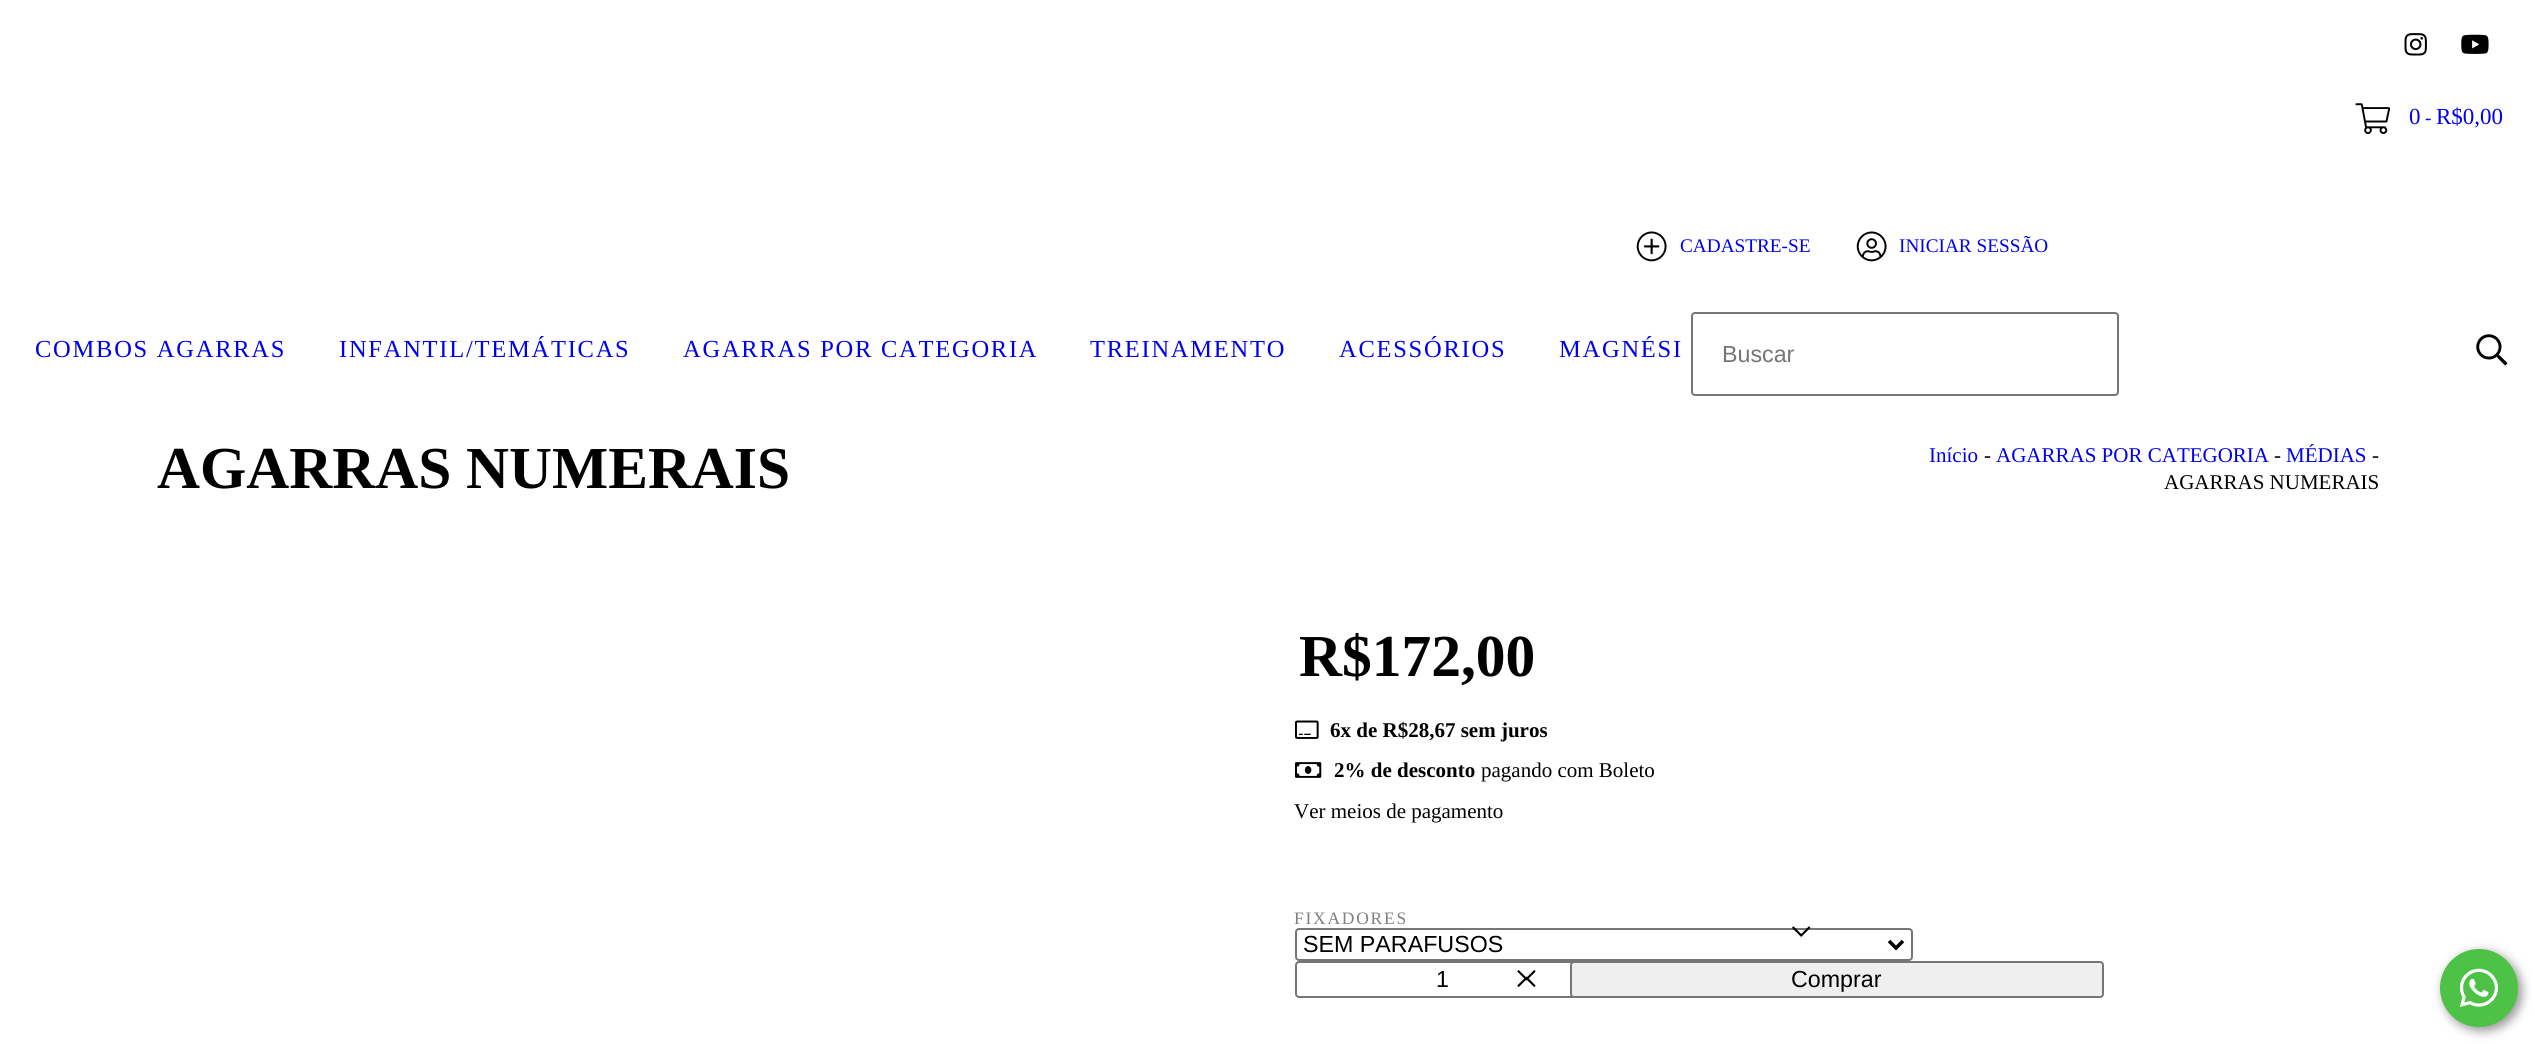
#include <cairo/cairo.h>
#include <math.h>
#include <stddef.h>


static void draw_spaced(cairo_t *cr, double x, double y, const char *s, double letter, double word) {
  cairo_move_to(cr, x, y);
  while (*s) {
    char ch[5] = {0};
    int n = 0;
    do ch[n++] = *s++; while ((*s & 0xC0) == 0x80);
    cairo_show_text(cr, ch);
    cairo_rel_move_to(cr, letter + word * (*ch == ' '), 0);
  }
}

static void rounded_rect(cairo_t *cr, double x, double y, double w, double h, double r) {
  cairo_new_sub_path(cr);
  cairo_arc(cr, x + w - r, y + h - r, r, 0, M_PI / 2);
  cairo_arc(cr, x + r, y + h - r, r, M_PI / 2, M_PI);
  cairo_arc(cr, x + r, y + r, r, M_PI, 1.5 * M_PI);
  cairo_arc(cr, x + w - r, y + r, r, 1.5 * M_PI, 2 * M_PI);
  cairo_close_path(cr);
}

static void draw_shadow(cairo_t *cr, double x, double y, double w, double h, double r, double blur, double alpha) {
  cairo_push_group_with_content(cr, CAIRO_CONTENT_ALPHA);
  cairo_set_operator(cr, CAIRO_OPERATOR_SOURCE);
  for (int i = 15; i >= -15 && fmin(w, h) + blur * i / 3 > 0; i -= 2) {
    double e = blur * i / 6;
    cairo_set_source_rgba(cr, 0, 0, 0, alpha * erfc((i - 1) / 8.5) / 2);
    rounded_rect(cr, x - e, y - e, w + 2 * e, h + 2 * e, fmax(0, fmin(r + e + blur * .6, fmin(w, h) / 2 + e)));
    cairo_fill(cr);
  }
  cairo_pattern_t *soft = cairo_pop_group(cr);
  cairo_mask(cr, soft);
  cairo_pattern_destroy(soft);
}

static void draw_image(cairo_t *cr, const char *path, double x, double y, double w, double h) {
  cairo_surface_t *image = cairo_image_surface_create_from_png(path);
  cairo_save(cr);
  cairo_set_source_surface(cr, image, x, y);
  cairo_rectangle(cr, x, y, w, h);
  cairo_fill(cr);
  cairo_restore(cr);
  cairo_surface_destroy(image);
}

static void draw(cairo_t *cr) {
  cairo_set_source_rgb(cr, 1, 1, 1);
  cairo_paint(cr);
  draw_image(cr, "images/1.png", 2404, 33, 23, 23);
  draw_image(cr, "images/2.png", 2461, 34, 28, 20);
  draw_image(cr, "images/3.png", 2355, 103, 36, 31);
  draw_image(cr, "images/4.png", 1636, 231, 31, 31);
  draw_image(cr, "images/5.png", 1856, 231, 31, 31);
  rounded_rect(cr, 1692, 313, 426, 82, 3);
  cairo_set_source_rgb(cr, 118 / 255.0, 118 / 255.0, 118 / 255.0);
  cairo_stroke(cr);
  draw_image(cr, "images/6.png", 2476, 334, 32, 32);
  draw_image(cr, "images/7.png", 1295, 720, 24, 19);
  draw_image(cr, "images/8.png", 1295, 762, 27, 16);
  rounded_rect(cr, 1296, 929, 616, 31, 3);
  cairo_stroke(cr);
  draw_image(cr, "images/9.png", 1792, 926, 19, 11);
  cairo_new_path(cr);
  cairo_move_to(cr, 1889, 941);
  cairo_line_to(cr, 1896, 948);
  cairo_line_to(cr, 1903, 941);
  cairo_set_source_rgb(cr, 0, 0, 0);
  cairo_set_line_width(cr, 3.5);
  cairo_stroke(cr);
  rounded_rect(cr, 1296, 962, 322, 35, 3);
  cairo_set_source_rgb(cr, 118 / 255.0, 118 / 255.0, 118 / 255.0);
  cairo_set_line_width(cr, 2);
  cairo_stroke(cr);
  draw_image(cr, "images/10.png", 1517, 970, 19, 11);
  draw_image(cr, "images/11.png", 1517, 976, 19, 11);
  cairo_set_source_rgb(cr, 239 / 255.0, 239 / 255.0, 239 / 255.0);
  rounded_rect(cr, 1571, 962, 532, 35, 3);
  cairo_fill_preserve(cr);
  cairo_set_source_rgb(cr, 118 / 255.0, 118 / 255.0, 118 / 255.0);
  cairo_stroke(cr);
  cairo_set_source_rgb(cr, 0, 0, 0);
  draw_shadow(cr, 2443, 952, 79, 79, 39.5, 5, 0.4);
  cairo_set_source_rgb(cr, 77 / 255.0, 194 / 255.0, 71 / 255.0);
  cairo_arc(cr, 2479, 988, 39, 0, 2 * M_PI);
  cairo_fill(cr);
  draw_image(cr, "images/12.png", 2459, 968, 39, 39);
  cairo_select_font_face(cr, "Liberation Serif", CAIRO_FONT_SLANT_NORMAL, CAIRO_FONT_WEIGHT_NORMAL);
  cairo_set_font_size(cr, 23);
  cairo_set_source_rgb(cr, 0, 0, 238 / 255.0);
  cairo_move_to(cr, 2409, 124);
  cairo_show_text(cr, "0");
  cairo_set_font_size(cr, 19.25);
  cairo_move_to(cr, 2425, 124);
  cairo_show_text(cr, "-");
  cairo_set_font_size(cr, 23);
  cairo_move_to(cr, 2436, 124);
  cairo_show_text(cr, "R$0,00");
  cairo_set_font_size(cr, 19.25);
  cairo_move_to(cr, 1680, 252);
  cairo_show_text(cr, "CADASTRE-SE");
  cairo_move_to(cr, 1899, 252);
  cairo_show_text(cr, "INICIAR SESSÃO");
  cairo_set_font_size(cr, 24.5);
  draw_spaced(cr, 35, 357, "COMBOS AGARRAS", 1.75, 0);
  draw_spaced(cr, 339, 357, "INFANTIL/TEMÁTICAS", 1.75, 0);
  draw_spaced(cr, 683, 357, "AGARRAS POR CATEGORIA", 1.75, 0);
  draw_spaced(cr, 1090, 357, "TREINAMENTO", 1.75, 0);
  draw_spaced(cr, 1339, 357, "ACESSÓRIOS", 1.75, 0);
  draw_spaced(cr, 1559, 357, "MAGNÉSI", 1.75, 0);
  cairo_select_font_face(cr, "Liberation Sans", CAIRO_FONT_SLANT_NORMAL, CAIRO_FONT_WEIGHT_NORMAL);
  cairo_set_font_size(cr, 23.25);
  cairo_set_source_rgb(cr, 117 / 255.0, 117 / 255.0, 117 / 255.0);
  cairo_move_to(cr, 1722, 362);
  cairo_show_text(cr, "Buscar");
  cairo_select_font_face(cr, "Liberation Serif", CAIRO_FONT_SLANT_NORMAL, CAIRO_FONT_WEIGHT_BOLD);
  cairo_set_font_size(cr, 59.5);
  cairo_set_source_rgb(cr, 0, 0, 0);
  cairo_move_to(cr, 157, 488);
  cairo_show_text(cr, "AGARRAS NUMERAIS");
  cairo_select_font_face(cr, "Liberation Serif", CAIRO_FONT_SLANT_NORMAL, CAIRO_FONT_WEIGHT_NORMAL);
  cairo_set_font_size(cr, 21);
  cairo_set_source_rgb(cr, 0, 0, 238 / 255.0);
  cairo_move_to(cr, 1929, 462);
  cairo_show_text(cr, "Início");
  cairo_set_source_rgb(cr, 0, 0, 0);
  cairo_move_to(cr, 1984, 462);
  cairo_show_text(cr, "-");
  cairo_set_source_rgb(cr, 0, 0, 238 / 255.0);
  cairo_move_to(cr, 1996, 462);
  cairo_show_text(cr, "AGARRAS POR CATEGORIA");
  cairo_set_source_rgb(cr, 0, 0, 0);
  cairo_move_to(cr, 2274, 462);
  cairo_show_text(cr, "-");
  cairo_set_source_rgb(cr, 0, 0, 238 / 255.0);
  cairo_move_to(cr, 2286, 462);
  cairo_show_text(cr, "MÉDIAS");
  cairo_set_source_rgb(cr, 0, 0, 0);
  cairo_move_to(cr, 2372, 462);
  cairo_show_text(cr, "-");
  cairo_move_to(cr, 2164, 489);
  cairo_show_text(cr, "AGARRAS NUMERAIS");
  cairo_select_font_face(cr, "Liberation Serif", CAIRO_FONT_SLANT_NORMAL, CAIRO_FONT_WEIGHT_BOLD);
  cairo_set_font_size(cr, 59.5);
  cairo_move_to(cr, 1299, 676);
  cairo_show_text(cr, "R$172,00");
  cairo_set_font_size(cr, 21);
  cairo_move_to(cr, 1330, 737);
  cairo_show_text(cr, "6x de R$28,67 sem juros");
  cairo_move_to(cr, 1334, 777);
  cairo_show_text(cr, "2% de desconto");
  cairo_select_font_face(cr, "Liberation Serif", CAIRO_FONT_SLANT_NORMAL, CAIRO_FONT_WEIGHT_NORMAL);
  cairo_move_to(cr, 1481, 777);
  cairo_show_text(cr, "pagando com Boleto");
  cairo_move_to(cr, 1294, 818);
  cairo_show_text(cr, "Ver meios de pagamento");
  cairo_set_font_size(cr, 17.5);
  cairo_set_source_rgb(cr, 128 / 255.0, 128 / 255.0, 128 / 255.0);
  draw_spaced(cr, 1294, 924, "FIXADORES", 1.75, 0);
  cairo_select_font_face(cr, "Liberation Sans", CAIRO_FONT_SLANT_NORMAL, CAIRO_FONT_WEIGHT_NORMAL);
  cairo_set_font_size(cr, 23.25);
  cairo_set_source_rgb(cr, 0, 0, 0);
  cairo_move_to(cr, 1303, 952);
  cairo_show_text(cr, "SEM PARAFUSOS");
  cairo_move_to(cr, 1436, 987);
  cairo_show_text(cr, "1");
  cairo_move_to(cr, 1791, 987);
  cairo_show_text(cr, "Comprar");
}

int main(void) {
  cairo_surface_t *surface = cairo_image_surface_create(CAIRO_FORMAT_RGB24, 2535, 1044);
  cairo_t *cr = cairo_create(surface);
  cairo_font_options_t *options = cairo_font_options_create();
  cairo_font_options_set_hint_metrics(options, CAIRO_HINT_METRICS_OFF);
  cairo_font_options_set_hint_style(options, CAIRO_HINT_STYLE_NONE);
  cairo_set_font_options(cr, options);
  cairo_set_miter_limit(cr, 4);
  draw(cr);
  cairo_surface_write_to_png(surface, "out.png");
  cairo_font_options_destroy(options);
  cairo_destroy(cr);
  cairo_surface_destroy(surface);
  return 0;
}
